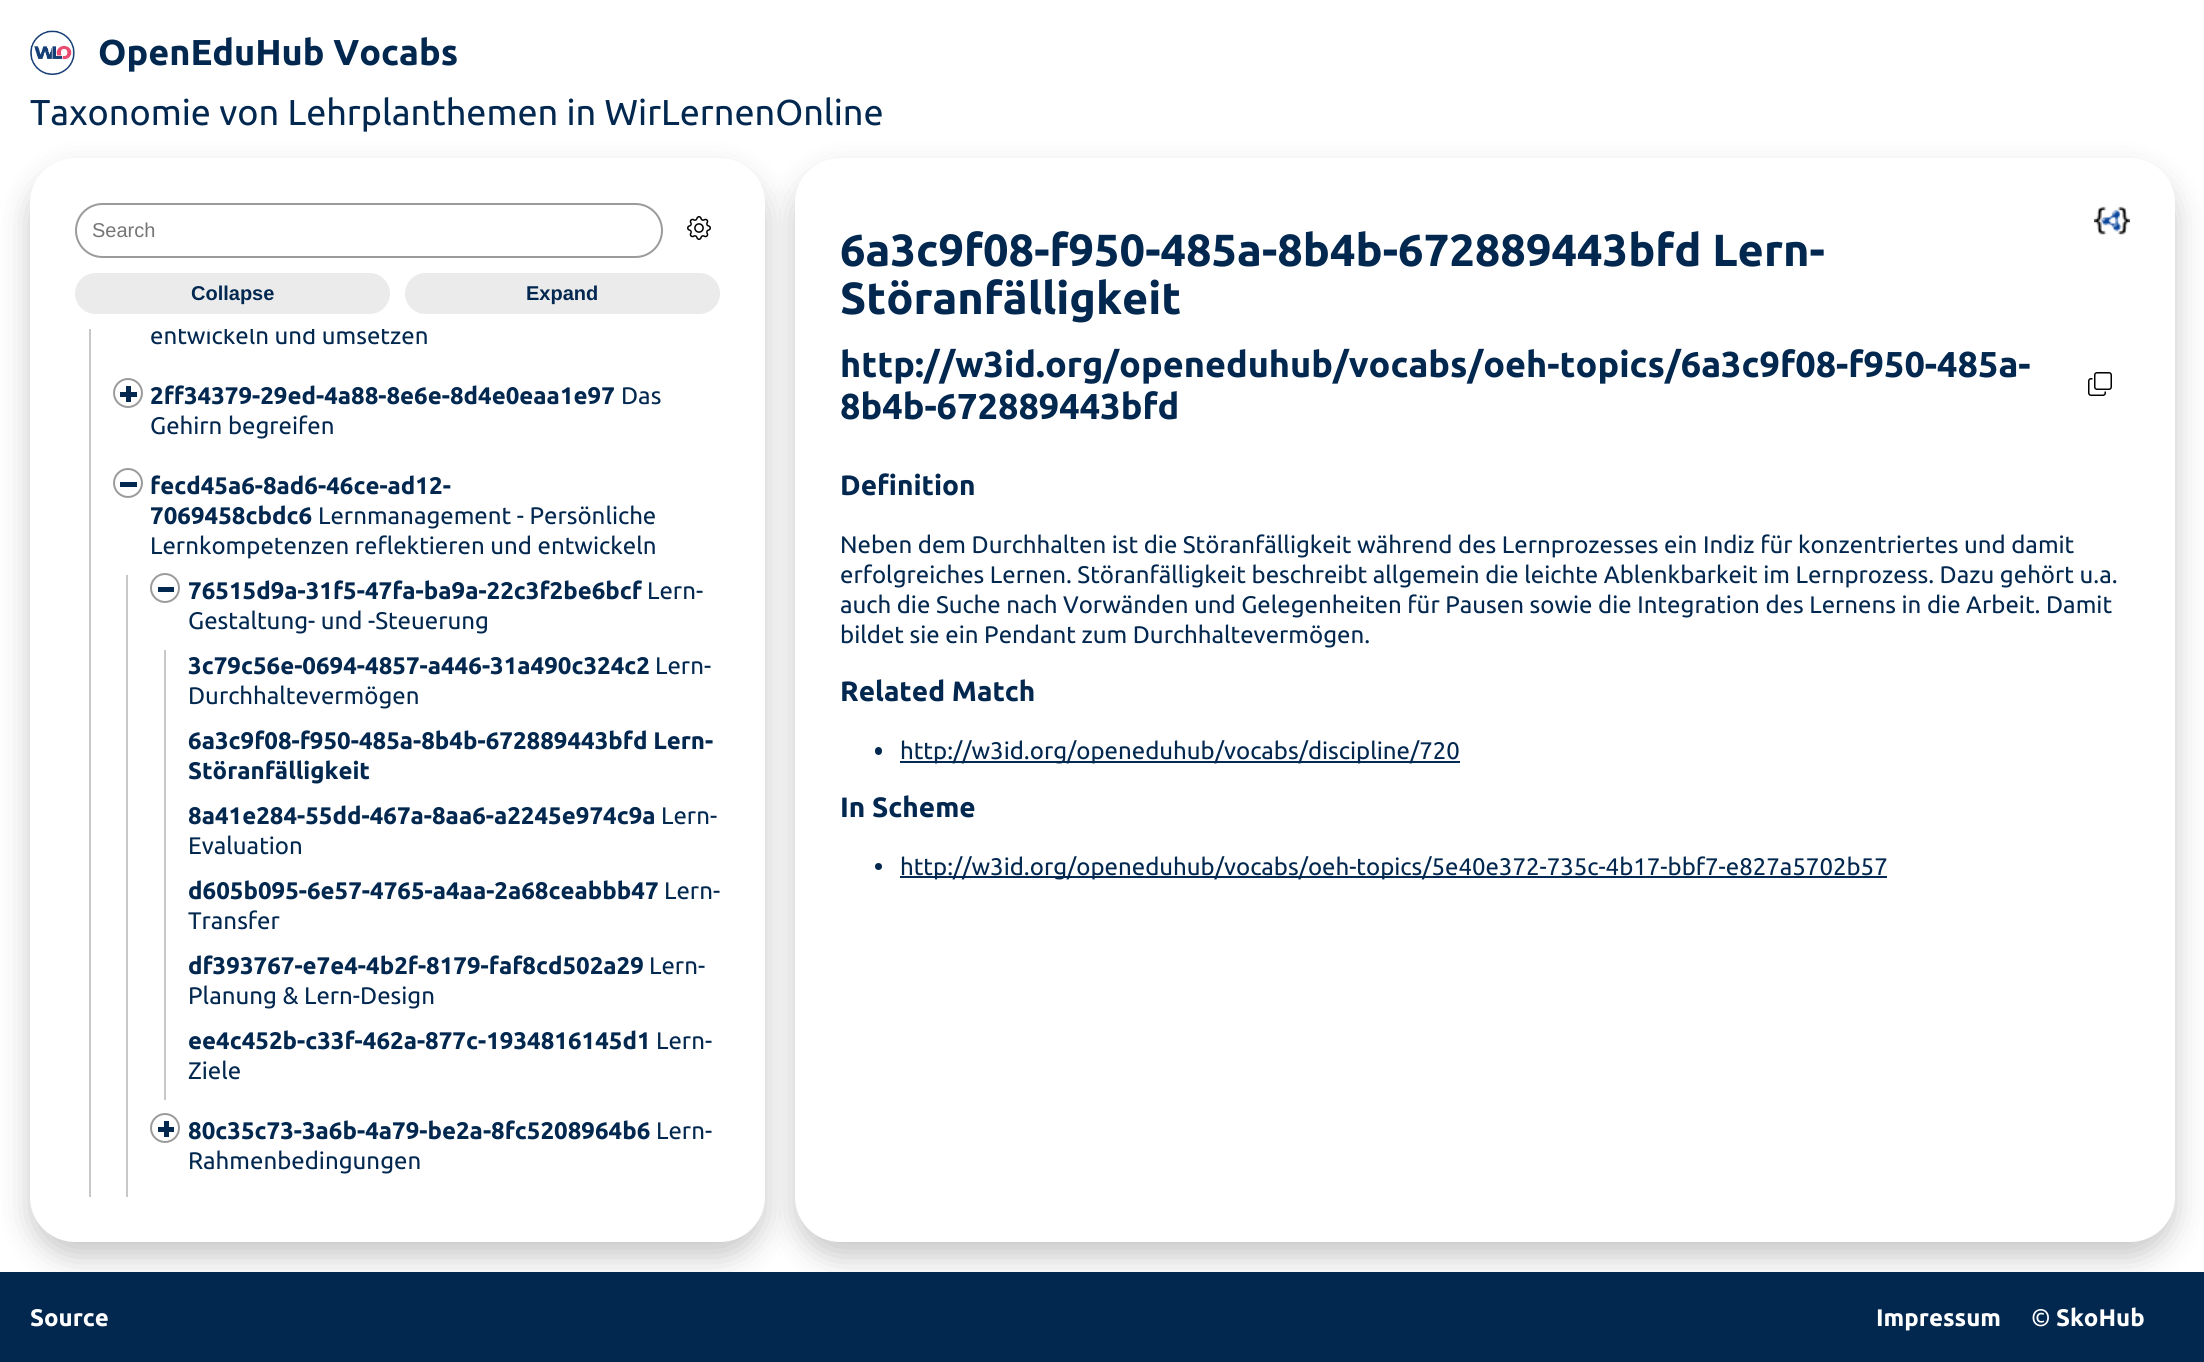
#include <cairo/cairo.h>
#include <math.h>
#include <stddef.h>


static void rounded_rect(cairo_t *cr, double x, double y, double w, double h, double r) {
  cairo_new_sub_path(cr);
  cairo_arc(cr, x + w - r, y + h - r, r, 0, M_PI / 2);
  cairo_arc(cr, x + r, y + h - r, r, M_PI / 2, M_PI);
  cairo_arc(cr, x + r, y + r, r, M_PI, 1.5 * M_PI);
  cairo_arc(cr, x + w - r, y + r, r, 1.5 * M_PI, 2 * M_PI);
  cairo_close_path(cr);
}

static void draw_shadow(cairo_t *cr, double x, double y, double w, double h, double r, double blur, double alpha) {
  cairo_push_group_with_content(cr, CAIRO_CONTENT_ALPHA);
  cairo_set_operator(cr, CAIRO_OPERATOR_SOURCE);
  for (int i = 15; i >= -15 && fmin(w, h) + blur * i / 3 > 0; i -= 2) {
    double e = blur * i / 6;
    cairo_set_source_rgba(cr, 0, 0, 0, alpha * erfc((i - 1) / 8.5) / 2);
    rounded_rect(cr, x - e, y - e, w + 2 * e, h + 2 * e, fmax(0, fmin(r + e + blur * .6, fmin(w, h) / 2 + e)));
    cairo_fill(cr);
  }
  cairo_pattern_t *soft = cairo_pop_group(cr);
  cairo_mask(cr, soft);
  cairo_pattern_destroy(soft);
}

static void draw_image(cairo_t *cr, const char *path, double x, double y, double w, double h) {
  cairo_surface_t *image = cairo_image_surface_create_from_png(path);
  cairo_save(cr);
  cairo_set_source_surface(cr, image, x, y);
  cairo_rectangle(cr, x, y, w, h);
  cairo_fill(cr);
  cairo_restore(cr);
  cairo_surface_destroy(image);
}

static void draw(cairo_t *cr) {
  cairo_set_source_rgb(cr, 1, 1, 1);
  cairo_paint(cr);
  draw_image(cr, "images/1.png", 30, 30, 45, 45);
  cairo_set_source_rgb(cr, 3 / 255.0, 40 / 255.0, 80 / 255.0);
  cairo_rectangle(cr, 0, 1272, 2204, 90);
  cairo_fill(cr);
  cairo_save(cr);
  cairo_rectangle(cr, 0, 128, 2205, 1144);
  cairo_clip(cr);
  cairo_set_source_rgb(cr, 200 / 255.0, 200 / 255.0, 200 / 255.0);
  draw_shadow(cr, 30, 173, 735, 1084, 45, 15, 1);
  cairo_restore(cr);
  cairo_set_source_rgb(cr, 1, 1, 1);
  rounded_rect(cr, 30, 158, 735, 1084, 45);
  cairo_fill(cr);
  rounded_rect(cr, 76, 204, 586, 53, 26.5);
  cairo_set_source_rgb(cr, 155 / 255.0, 155 / 255.0, 155 / 255.0);
  cairo_stroke(cr);
  draw_image(cr, "images/2.png", 687, 216, 24, 24);
  cairo_set_source_rgb(cr, 235 / 255.0, 235 / 255.0, 235 / 255.0);
  rounded_rect(cr, 76, 274, 313, 39, 19.5);
  cairo_fill_preserve(cr);
  cairo_stroke(cr);
  rounded_rect(cr, 406, 274, 313, 39, 19.5);
  cairo_fill_preserve(cr);
  cairo_stroke(cr);
  cairo_set_source_rgb(cr, 200 / 255.0, 200 / 255.0, 200 / 255.0);
  cairo_rectangle(cr, 89, 329, 2, 868);
  cairo_fill(cr);
  cairo_arc(cr, 128, 393, 14, 0, 2 * M_PI);
  cairo_set_source_rgb(cr, 155 / 255.0, 155 / 255.0, 155 / 255.0);
  cairo_stroke(cr);
  cairo_set_source_rgb(cr, 3 / 255.0, 40 / 255.0, 80 / 255.0);
  cairo_rectangle(cr, 120, 392, 17, 5);
  cairo_fill(cr);
  cairo_rectangle(cr, 126, 386, 5, 16);
  cairo_fill(cr);
  cairo_arc(cr, 128, 483, 14, 0, 2 * M_PI);
  cairo_set_source_rgb(cr, 155 / 255.0, 155 / 255.0, 155 / 255.0);
  cairo_stroke(cr);
  cairo_set_source_rgb(cr, 3 / 255.0, 40 / 255.0, 80 / 255.0);
  cairo_rectangle(cr, 120, 482, 17, 5);
  cairo_fill(cr);
  cairo_set_source_rgb(cr, 200 / 255.0, 200 / 255.0, 200 / 255.0);
  cairo_rectangle(cr, 126, 575, 2, 622);
  cairo_fill(cr);
  cairo_arc(cr, 165, 588, 14, 0, 2 * M_PI);
  cairo_set_source_rgb(cr, 155 / 255.0, 155 / 255.0, 155 / 255.0);
  cairo_stroke(cr);
  cairo_set_source_rgb(cr, 3 / 255.0, 40 / 255.0, 80 / 255.0);
  cairo_rectangle(cr, 158, 587, 16, 5);
  cairo_fill(cr);
  cairo_set_source_rgb(cr, 200 / 255.0, 200 / 255.0, 200 / 255.0);
  cairo_rectangle(cr, 164, 650, 2, 450);
  cairo_fill(cr);
  cairo_arc(cr, 165, 1128, 14, 0, 2 * M_PI);
  cairo_set_source_rgb(cr, 155 / 255.0, 155 / 255.0, 155 / 255.0);
  cairo_stroke(cr);
  cairo_set_source_rgb(cr, 3 / 255.0, 40 / 255.0, 80 / 255.0);
  cairo_rectangle(cr, 158, 1127, 16, 5);
  cairo_fill(cr);
  cairo_rectangle(cr, 164, 1121, 5, 16);
  cairo_fill(cr);
  cairo_save(cr);
  cairo_rectangle(cr, 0, 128, 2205, 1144);
  cairo_clip(cr);
  cairo_set_source_rgb(cr, 200 / 255.0, 200 / 255.0, 200 / 255.0);
  draw_shadow(cr, 795, 173, 1380, 1084, 45, 15, 1);
  cairo_restore(cr);
  cairo_set_source_rgb(cr, 1, 1, 1);
  rounded_rect(cr, 795, 158, 1380, 1084, 45);
  cairo_fill(cr);
  draw_image(cr, "images/3.png", 2094, 206, 36, 29);
  draw_image(cr, "images/4.png", 2088, 372, 24, 24);
  cairo_set_source_rgb(cr, 3 / 255.0, 40 / 255.0, 80 / 255.0);
  rounded_rect(cr, 875, 747, 7, 8, 3.5);
  cairo_fill(cr);
  cairo_set_source_rgb(cr, 3 / 255.0, 42 / 255.0, 85 / 255.0);
  cairo_rectangle(cr, 900, 761, 560, 2);
  cairo_fill(cr);
  cairo_set_source_rgb(cr, 3 / 255.0, 40 / 255.0, 80 / 255.0);
  cairo_arc(cr, 878.5, 866.5, 3.5, 0, 2 * M_PI);
  cairo_fill(cr);
  cairo_set_source_rgb(cr, 3 / 255.0, 42 / 255.0, 85 / 255.0);
  cairo_rectangle(cr, 900, 876, 987, 2);
  cairo_fill(cr);
  cairo_select_font_face(cr, "Ubuntu", CAIRO_FONT_SLANT_NORMAL, CAIRO_FONT_WEIGHT_BOLD);
  cairo_set_font_size(cr, 36);
  cairo_set_source_rgb(cr, 3 / 255.0, 40 / 255.0, 80 / 255.0);
  cairo_move_to(cr, 98, 65);
  cairo_show_text(cr, "OpenEduHub Vocabs");
  cairo_select_font_face(cr, "Ubuntu", CAIRO_FONT_SLANT_NORMAL, CAIRO_FONT_WEIGHT_NORMAL);
  cairo_move_to(cr, 30, 125);
  cairo_show_text(cr, "Taxonomie von Lehrplanthemen in WirLernenOnline");
  cairo_select_font_face(cr, "Liberation Sans", CAIRO_FONT_SLANT_NORMAL, CAIRO_FONT_WEIGHT_NORMAL);
  cairo_set_font_size(cr, 20);
  cairo_set_source_rgb(cr, 117 / 255.0, 117 / 255.0, 117 / 255.0);
  cairo_move_to(cr, 92, 237);
  cairo_show_text(cr, "Search");
  cairo_select_font_face(cr, "Liberation Sans", CAIRO_FONT_SLANT_NORMAL, CAIRO_FONT_WEIGHT_BOLD);
  cairo_set_source_rgb(cr, 3 / 255.0, 40 / 255.0, 80 / 255.0);
  cairo_move_to(cr, 191, 300);
  cairo_show_text(cr, "Collapse");
  cairo_move_to(cr, 526, 300);
  cairo_show_text(cr, "Expand");
  cairo_save(cr);
  cairo_rectangle(cr, 75, 329, 645, 868);
  cairo_clip(cr);
  cairo_select_font_face(cr, "Ubuntu", CAIRO_FONT_SLANT_NORMAL, CAIRO_FONT_WEIGHT_NORMAL);
  cairo_set_font_size(cr, 24);
  cairo_move_to(cr, 150, 344);
  cairo_show_text(cr, "entwickeln und umsetzen");
  cairo_restore(cr);
  cairo_select_font_face(cr, "Ubuntu", CAIRO_FONT_SLANT_NORMAL, CAIRO_FONT_WEIGHT_BOLD);
  cairo_set_font_size(cr, 24);
  cairo_move_to(cr, 150, 404);
  cairo_show_text(cr, "2ff34379-29ed-4a88-8e6e-8d4e0eaa1e97");
  cairo_select_font_face(cr, "Ubuntu", CAIRO_FONT_SLANT_NORMAL, CAIRO_FONT_WEIGHT_NORMAL);
  cairo_move_to(cr, 621, 404);
  cairo_show_text(cr, "Das");
  cairo_move_to(cr, 150, 434);
  cairo_show_text(cr, "Gehirn begreifen");
  cairo_select_font_face(cr, "Ubuntu", CAIRO_FONT_SLANT_NORMAL, CAIRO_FONT_WEIGHT_BOLD);
  cairo_move_to(cr, 150, 494);
  cairo_show_text(cr, "fecd45a6-8ad6-46ce-ad12-");
  cairo_move_to(cr, 150, 524);
  cairo_show_text(cr, "7069458cbdc6");
  cairo_select_font_face(cr, "Ubuntu", CAIRO_FONT_SLANT_NORMAL, CAIRO_FONT_WEIGHT_NORMAL);
  cairo_move_to(cr, 318, 524);
  cairo_show_text(cr, "Lernmanagement - Persönliche");
  cairo_move_to(cr, 150, 554);
  cairo_show_text(cr, "Lernkompetenzen reflektieren und entwickeln");
  cairo_select_font_face(cr, "Ubuntu", CAIRO_FONT_SLANT_NORMAL, CAIRO_FONT_WEIGHT_BOLD);
  cairo_move_to(cr, 188, 599);
  cairo_show_text(cr, "76515d9a-31f5-47fa-ba9a-22c3f2be6bcf");
  cairo_select_font_face(cr, "Ubuntu", CAIRO_FONT_SLANT_NORMAL, CAIRO_FONT_WEIGHT_NORMAL);
  cairo_move_to(cr, 647, 599);
  cairo_show_text(cr, "Lern-");
  cairo_move_to(cr, 188, 629);
  cairo_show_text(cr, "Gestaltung- und -Steuerung");
  cairo_select_font_face(cr, "Ubuntu", CAIRO_FONT_SLANT_NORMAL, CAIRO_FONT_WEIGHT_BOLD);
  cairo_move_to(cr, 188, 674);
  cairo_show_text(cr, "3c79c56e-0694-4857-a446-31a490c324c2");
  cairo_select_font_face(cr, "Ubuntu", CAIRO_FONT_SLANT_NORMAL, CAIRO_FONT_WEIGHT_NORMAL);
  cairo_move_to(cr, 655, 674);
  cairo_show_text(cr, "Lern-");
  cairo_move_to(cr, 188, 704);
  cairo_show_text(cr, "Durchhaltevermögen");
  cairo_select_font_face(cr, "Ubuntu", CAIRO_FONT_SLANT_NORMAL, CAIRO_FONT_WEIGHT_BOLD);
  cairo_move_to(cr, 188, 749);
  cairo_show_text(cr, "6a3c9f08-f950-485a-8b4b-672889443bfd Lern-");
  cairo_move_to(cr, 188, 779);
  cairo_show_text(cr, "Störanfälligkeit");
  cairo_move_to(cr, 188, 824);
  cairo_show_text(cr, "8a41e284-55dd-467a-8aa6-a2245e974c9a");
  cairo_select_font_face(cr, "Ubuntu", CAIRO_FONT_SLANT_NORMAL, CAIRO_FONT_WEIGHT_NORMAL);
  cairo_move_to(cr, 661, 824);
  cairo_show_text(cr, "Lern-");
  cairo_move_to(cr, 188, 854);
  cairo_show_text(cr, "Evaluation");
  cairo_select_font_face(cr, "Ubuntu", CAIRO_FONT_SLANT_NORMAL, CAIRO_FONT_WEIGHT_BOLD);
  cairo_move_to(cr, 188, 899);
  cairo_show_text(cr, "d605b095-6e57-4765-a4aa-2a68ceabbb47");
  cairo_select_font_face(cr, "Ubuntu", CAIRO_FONT_SLANT_NORMAL, CAIRO_FONT_WEIGHT_NORMAL);
  cairo_move_to(cr, 664, 899);
  cairo_show_text(cr, "Lern-");
  cairo_move_to(cr, 188, 929);
  cairo_show_text(cr, "Transfer");
  cairo_select_font_face(cr, "Ubuntu", CAIRO_FONT_SLANT_NORMAL, CAIRO_FONT_WEIGHT_BOLD);
  cairo_move_to(cr, 188, 974);
  cairo_show_text(cr, "df393767-e7e4-4b2f-8179-faf8cd502a29");
  cairo_select_font_face(cr, "Ubuntu", CAIRO_FONT_SLANT_NORMAL, CAIRO_FONT_WEIGHT_NORMAL);
  cairo_move_to(cr, 649, 974);
  cairo_show_text(cr, "Lern-");
  cairo_move_to(cr, 188, 1004);
  cairo_show_text(cr, "Planung & Lern-Design");
  cairo_select_font_face(cr, "Ubuntu", CAIRO_FONT_SLANT_NORMAL, CAIRO_FONT_WEIGHT_BOLD);
  cairo_move_to(cr, 188, 1049);
  cairo_show_text(cr, "ee4c452b-c33f-462a-877c-1934816145d1");
  cairo_select_font_face(cr, "Ubuntu", CAIRO_FONT_SLANT_NORMAL, CAIRO_FONT_WEIGHT_NORMAL);
  cairo_move_to(cr, 656, 1049);
  cairo_show_text(cr, "Lern-");
  cairo_move_to(cr, 188, 1079);
  cairo_show_text(cr, "Ziele");
  cairo_select_font_face(cr, "Ubuntu", CAIRO_FONT_SLANT_NORMAL, CAIRO_FONT_WEIGHT_BOLD);
  cairo_move_to(cr, 188, 1139);
  cairo_show_text(cr, "80c35c73-3a6b-4a79-be2a-8fc5208964b6");
  cairo_select_font_face(cr, "Ubuntu", CAIRO_FONT_SLANT_NORMAL, CAIRO_FONT_WEIGHT_NORMAL);
  cairo_move_to(cr, 656, 1139);
  cairo_show_text(cr, "Lern-");
  cairo_move_to(cr, 188, 1169);
  cairo_show_text(cr, "Rahmenbedingungen");
  cairo_select_font_face(cr, "Ubuntu", CAIRO_FONT_SLANT_NORMAL, CAIRO_FONT_WEIGHT_BOLD);
  cairo_set_font_size(cr, 45);
  cairo_move_to(cr, 840, 266);
  cairo_show_text(cr, "6a3c9f08-f950-485a-8b4b-672889443bfd Lern-");
  cairo_move_to(cr, 840, 314);
  cairo_show_text(cr, "Störanfälligkeit");
  cairo_set_font_size(cr, 36);
  cairo_move_to(cr, 840, 377);
  cairo_show_text(cr, "http://w3id.org/openeduhub/vocabs/oeh-topics/6a3c9f08-f950-485a-");
  cairo_move_to(cr, 840, 419);
  cairo_show_text(cr, "8b4b-672889443bfd");
  cairo_set_font_size(cr, 28);
  cairo_move_to(cr, 840, 495);
  cairo_show_text(cr, "Definition");
  cairo_select_font_face(cr, "Ubuntu", CAIRO_FONT_SLANT_NORMAL, CAIRO_FONT_WEIGHT_NORMAL);
  cairo_set_font_size(cr, 24);
  cairo_move_to(cr, 840, 553);
  cairo_show_text(cr, "Neben dem Durchhalten ist die Störanfälligkeit während des Lernprozesses ein Indiz für konzentriertes und damit");
  cairo_move_to(cr, 840, 583);
  cairo_show_text(cr, "erfolgreiches Lernen. Störanfälligkeit beschreibt allgemein die leichte Ablenkbarkeit im Lernprozess. Dazu gehört u.a.");
  cairo_move_to(cr, 840, 613);
  cairo_show_text(cr, "auch die Suche nach Vorwänden und Gelegenheiten für Pausen sowie die Integration des Lernens in die Arbeit. Damit");
  cairo_move_to(cr, 840, 643);
  cairo_show_text(cr, "bildet sie ein Pendant zum Durchhaltevermögen.");
  cairo_select_font_face(cr, "Ubuntu", CAIRO_FONT_SLANT_NORMAL, CAIRO_FONT_WEIGHT_BOLD);
  cairo_set_font_size(cr, 28);
  cairo_move_to(cr, 840, 701);
  cairo_show_text(cr, "Related Match");
  cairo_select_font_face(cr, "Ubuntu", CAIRO_FONT_SLANT_NORMAL, CAIRO_FONT_WEIGHT_NORMAL);
  cairo_set_font_size(cr, 24);
  cairo_move_to(cr, 900, 759);
  cairo_show_text(cr, "http://w3id.org/openeduhub/vocabs/discipline/720");
  cairo_select_font_face(cr, "Ubuntu", CAIRO_FONT_SLANT_NORMAL, CAIRO_FONT_WEIGHT_BOLD);
  cairo_set_font_size(cr, 28);
  cairo_move_to(cr, 840, 817);
  cairo_show_text(cr, "In Scheme");
  cairo_select_font_face(cr, "Ubuntu", CAIRO_FONT_SLANT_NORMAL, CAIRO_FONT_WEIGHT_NORMAL);
  cairo_set_font_size(cr, 24);
  cairo_move_to(cr, 900, 875);
  cairo_show_text(cr, "http://w3id.org/openeduhub/vocabs/oeh-topics/5e40e372-735c-4b17-bbf7-e827a5702b57");
  cairo_select_font_face(cr, "Ubuntu", CAIRO_FONT_SLANT_NORMAL, CAIRO_FONT_WEIGHT_BOLD);
  cairo_set_source_rgb(cr, 1, 1, 1);
  cairo_move_to(cr, 30, 1326);
  cairo_show_text(cr, "Source");
  cairo_move_to(cr, 1876, 1326);
  cairo_show_text(cr, "Impressum");
  cairo_select_font_face(cr, "Ubuntu", CAIRO_FONT_SLANT_NORMAL, CAIRO_FONT_WEIGHT_NORMAL);
  cairo_move_to(cr, 2031, 1326);
  cairo_show_text(cr, "©");
  cairo_select_font_face(cr, "Ubuntu", CAIRO_FONT_SLANT_NORMAL, CAIRO_FONT_WEIGHT_BOLD);
  cairo_move_to(cr, 2056, 1326);
  cairo_show_text(cr, "SkoHub");
}

int main(void) {
  cairo_surface_t *surface = cairo_image_surface_create(CAIRO_FORMAT_RGB24, 2204, 1362);
  cairo_t *cr = cairo_create(surface);
  cairo_font_options_t *options = cairo_font_options_create();
  cairo_font_options_set_hint_metrics(options, CAIRO_HINT_METRICS_OFF);
  cairo_font_options_set_hint_style(options, CAIRO_HINT_STYLE_NONE);
  cairo_set_font_options(cr, options);
  cairo_set_miter_limit(cr, 4);
  draw(cr);
  cairo_surface_write_to_png(surface, "out.png");
  cairo_font_options_destroy(options);
  cairo_destroy(cr);
  cairo_surface_destroy(surface);
  return 0;
}
